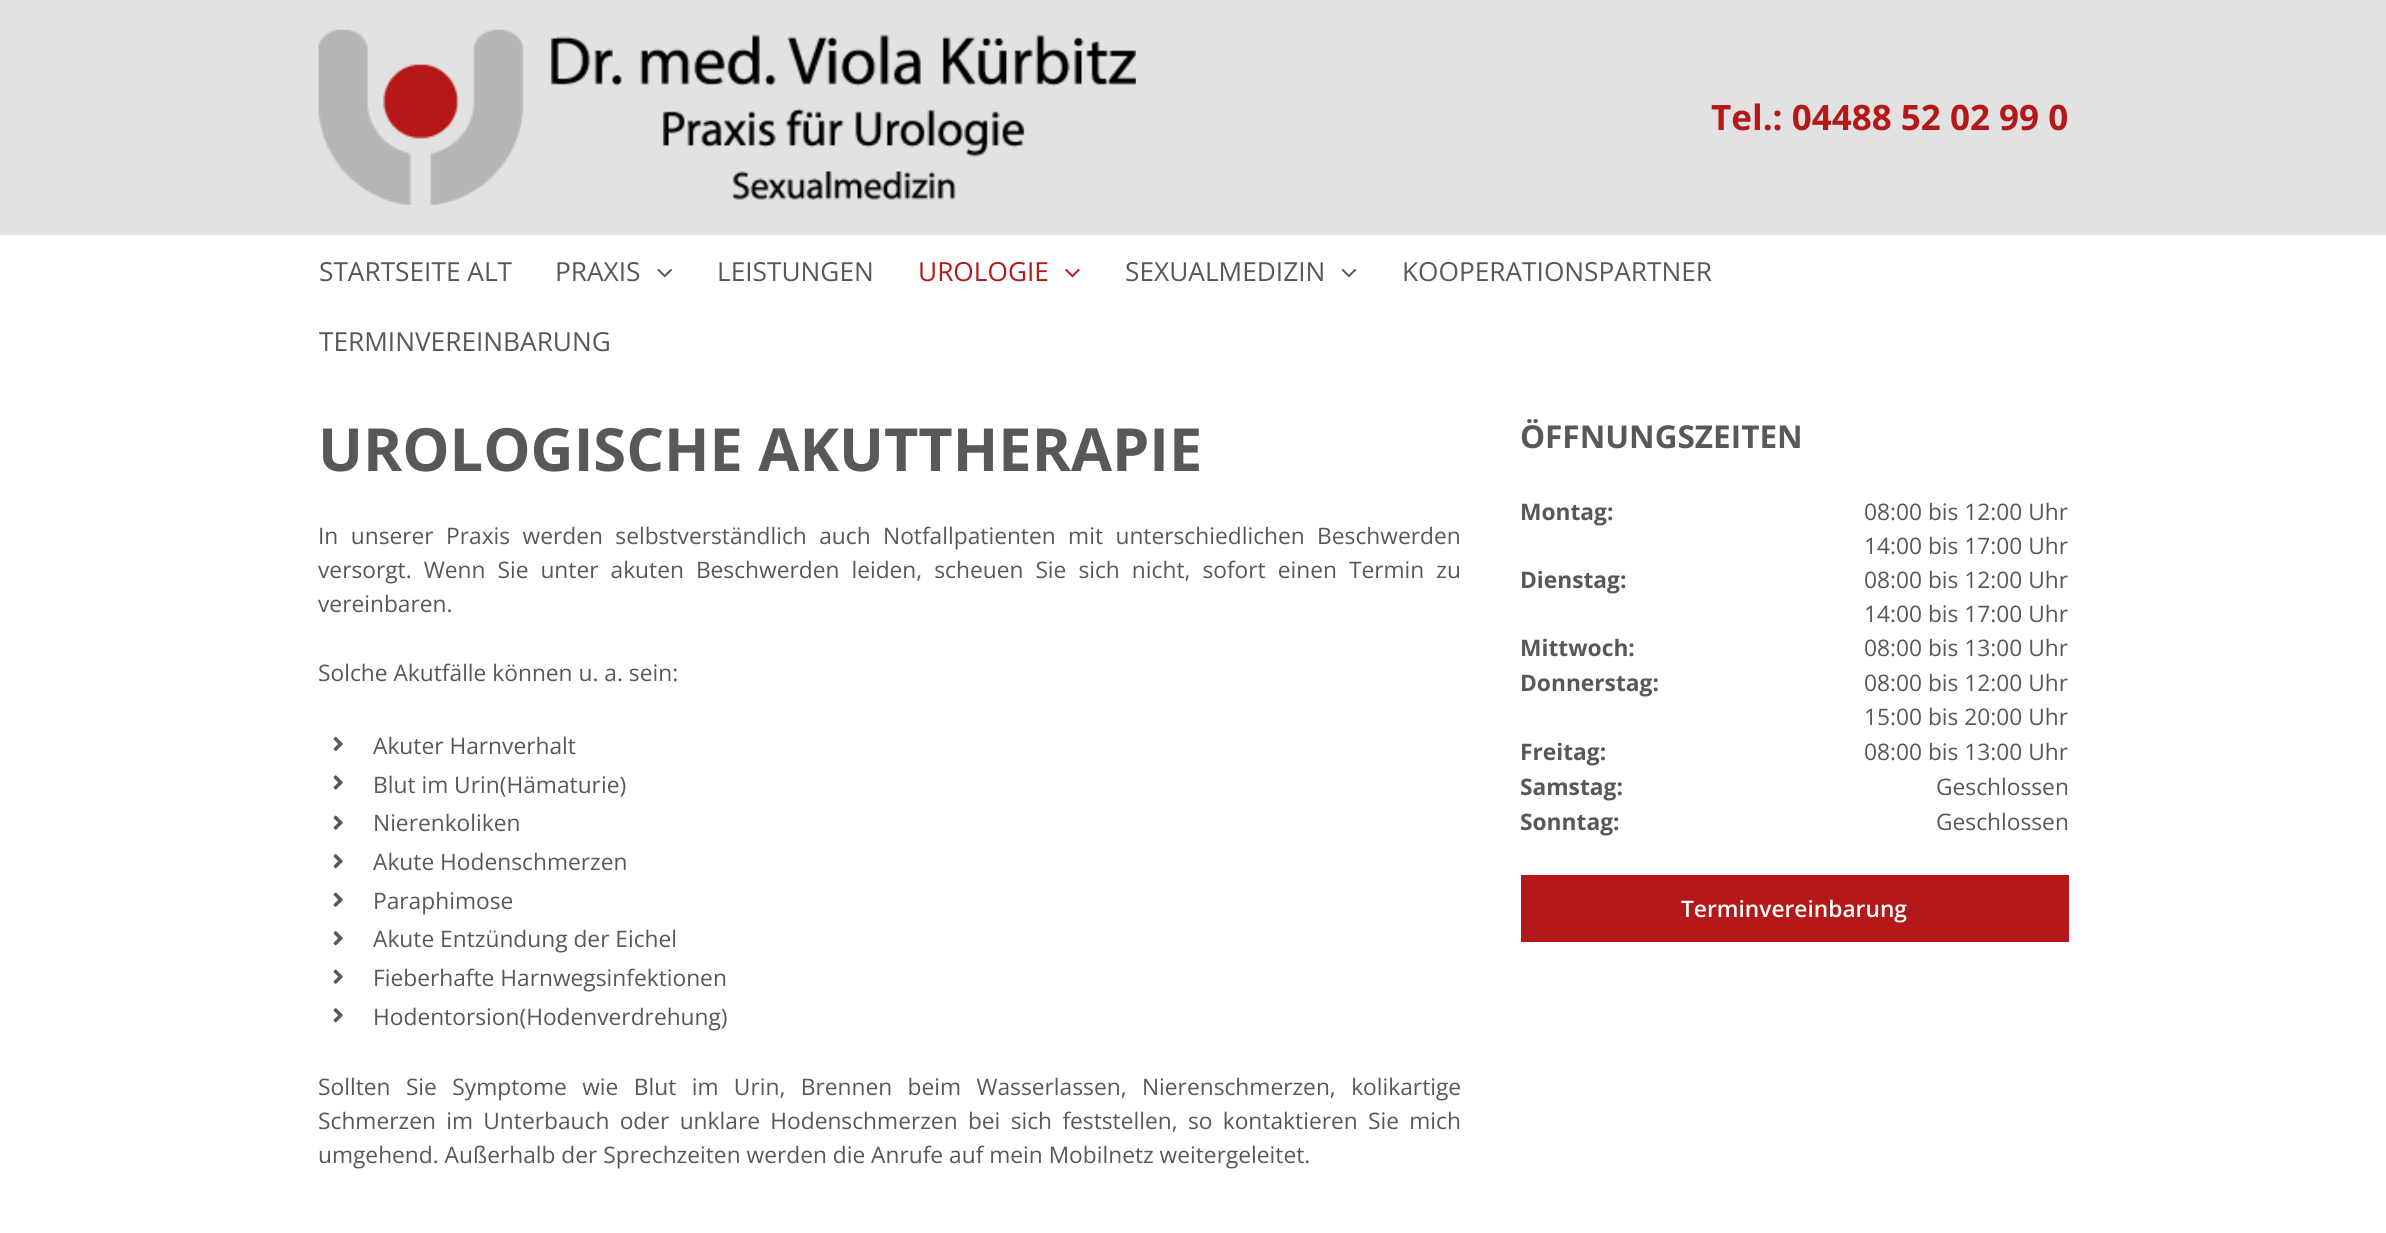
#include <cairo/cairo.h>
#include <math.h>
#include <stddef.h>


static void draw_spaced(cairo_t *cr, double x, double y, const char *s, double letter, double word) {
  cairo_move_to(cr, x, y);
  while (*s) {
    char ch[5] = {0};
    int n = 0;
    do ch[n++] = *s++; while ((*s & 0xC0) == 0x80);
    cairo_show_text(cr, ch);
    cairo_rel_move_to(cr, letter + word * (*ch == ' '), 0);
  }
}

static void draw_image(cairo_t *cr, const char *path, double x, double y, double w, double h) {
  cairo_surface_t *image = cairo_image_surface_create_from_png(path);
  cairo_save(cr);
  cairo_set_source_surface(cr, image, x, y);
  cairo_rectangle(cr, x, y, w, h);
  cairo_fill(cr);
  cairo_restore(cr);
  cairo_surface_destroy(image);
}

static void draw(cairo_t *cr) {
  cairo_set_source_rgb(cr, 1, 1, 1);
  cairo_paint(cr);
  cairo_set_source_rgb(cr, 226 / 255.0, 226 / 255.0, 226 / 255.0);
  cairo_rectangle(cr, 0, 0, 2386, 235);
  cairo_fill(cr);
  draw_image(cr, "images/1.png", 318, 29, 818, 176);
  draw_image(cr, "images/2.png", 657, 268, 15, 10);
  draw_image(cr, "images/3.png", 1065, 268, 15, 10);
  draw_image(cr, "images/4.png", 1341, 268, 16, 10);
  draw_image(cr, "images/5.png", 333, 736, 10, 16);
  draw_image(cr, "images/6.png", 333, 775, 10, 15);
  draw_image(cr, "images/7.png", 333, 815, 10, 15);
  draw_image(cr, "images/8.png", 333, 854, 10, 15);
  draw_image(cr, "images/7.png", 333, 892, 10, 15);
  draw_image(cr, "images/8.png", 333, 931, 10, 15);
  draw_image(cr, "images/7.png", 333, 969, 10, 15);
  draw_image(cr, "images/8.png", 333, 1008, 10, 15);
  cairo_set_source_rgb(cr, 181 / 255.0, 24 / 255.0, 24 / 255.0);
  cairo_rectangle(cr, 1521, 875, 548, 67);
  cairo_fill(cr);
  cairo_select_font_face(cr, "Open Sans", CAIRO_FONT_SLANT_NORMAL, CAIRO_FONT_WEIGHT_BOLD);
  cairo_set_font_size(cr, 35);
  cairo_move_to(cr, 1711, 130);
  cairo_show_text(cr, "Tel.: 04488 52 02 99 0");
  cairo_select_font_face(cr, "Open Sans", CAIRO_FONT_SLANT_NORMAL, CAIRO_FONT_WEIGHT_NORMAL);
  cairo_set_font_size(cr, 26.25);
  cairo_set_source_rgb(cr, 89 / 255.0, 88 / 255.0, 88 / 255.0);
  cairo_move_to(cr, 319, 281);
  cairo_show_text(cr, "STARTSEITE ALT");
  cairo_move_to(cr, 555, 281);
  cairo_show_text(cr, "PRAXIS");
  cairo_move_to(cr, 717, 281);
  cairo_show_text(cr, "LEISTUNGEN");
  cairo_set_source_rgb(cr, 181 / 255.0, 24 / 255.0, 24 / 255.0);
  cairo_move_to(cr, 918, 281);
  cairo_show_text(cr, "UROLOGIE");
  cairo_set_source_rgb(cr, 89 / 255.0, 88 / 255.0, 88 / 255.0);
  cairo_move_to(cr, 1125, 281);
  cairo_show_text(cr, "SEXUALMEDIZIN");
  cairo_move_to(cr, 1402, 281);
  cairo_show_text(cr, "KOOPERATIONSPARTNER");
  cairo_move_to(cr, 319, 351);
  cairo_show_text(cr, "TERMINVEREINBARUNG");
  cairo_select_font_face(cr, "Open Sans", CAIRO_FONT_SLANT_NORMAL, CAIRO_FONT_WEIGHT_BOLD);
  cairo_set_font_size(cr, 59.5);
  cairo_move_to(cr, 318, 471);
  cairo_show_text(cr, "UROLOGISCHE AKUTTHERAPIE");
  cairo_select_font_face(cr, "Open Sans", CAIRO_FONT_SLANT_NORMAL, CAIRO_FONT_WEIGHT_NORMAL);
  cairo_set_font_size(cr, 22.75);
  draw_spaced(cr, 318, 544, "In unserer Praxis werden selbstverständlich auch Notfallpatienten mit unterschiedlichen Beschwerden", 0, 6.5);
  draw_spaced(cr, 318, 578, "versorgt. Wenn Sie unter akuten Beschwerden leiden, scheuen Sie sich nicht, sofort einen Termin zu", 0, 6.1);
  cairo_move_to(cr, 318, 612);
  cairo_show_text(cr, "vereinbaren.");
  cairo_move_to(cr, 318, 681);
  cairo_show_text(cr, "Solche Akutfälle können u. a. sein:");
  cairo_move_to(cr, 373, 754);
  cairo_show_text(cr, "Akuter Harnverhalt");
  cairo_move_to(cr, 373, 793);
  cairo_show_text(cr, "Blut im Urin(Hämaturie)");
  cairo_move_to(cr, 373, 831);
  cairo_show_text(cr, "Nierenkoliken");
  cairo_move_to(cr, 373, 870);
  cairo_show_text(cr, "Akute Hodenschmerzen");
  cairo_move_to(cr, 373, 909);
  cairo_show_text(cr, "Paraphimose");
  cairo_move_to(cr, 373, 947);
  cairo_show_text(cr, "Akute Entzündung der Eichel");
  cairo_move_to(cr, 373, 986);
  cairo_show_text(cr, "Fieberhafte Harnwegsinfektionen");
  cairo_move_to(cr, 373, 1025);
  cairo_show_text(cr, "Hodentorsion(Hodenverdrehung)");
  draw_spaced(cr, 318, 1095, "Sollten Sie Symptome wie Blut im Urin, Brennen beim Wasserlassen, Nierenschmerzen, kolikartige", 0, 9.5);
  draw_spaced(cr, 318, 1129, "Schmerzen im Unterbauch oder unklare Hodenschmerzen bei sich feststellen, so kontaktieren Sie mich", 0, 4.4);
  cairo_move_to(cr, 318, 1163);
  cairo_show_text(cr, "umgehend. Außerhalb der Sprechzeiten werden die Anrufe auf mein Mobilnetz weitergeleitet.");
  cairo_select_font_face(cr, "Open Sans", CAIRO_FONT_SLANT_NORMAL, CAIRO_FONT_WEIGHT_BOLD);
  cairo_set_font_size(cr, 31.5);
  cairo_move_to(cr, 1520, 448);
  cairo_show_text(cr, "ÖFFNUNGSZEITEN");
  cairo_set_font_size(cr, 22.75);
  cairo_move_to(cr, 1520, 520);
  cairo_show_text(cr, "Montag:");
  cairo_select_font_face(cr, "Open Sans", CAIRO_FONT_SLANT_NORMAL, CAIRO_FONT_WEIGHT_NORMAL);
  cairo_move_to(cr, 1864, 520);
  cairo_show_text(cr, "08:00 bis 12:00 Uhr");
  cairo_move_to(cr, 1864, 554);
  cairo_show_text(cr, "14:00 bis 17:00 Uhr");
  cairo_select_font_face(cr, "Open Sans", CAIRO_FONT_SLANT_NORMAL, CAIRO_FONT_WEIGHT_BOLD);
  cairo_move_to(cr, 1520, 588);
  cairo_show_text(cr, "Dienstag:");
  cairo_select_font_face(cr, "Open Sans", CAIRO_FONT_SLANT_NORMAL, CAIRO_FONT_WEIGHT_NORMAL);
  cairo_move_to(cr, 1864, 588);
  cairo_show_text(cr, "08:00 bis 12:00 Uhr");
  cairo_move_to(cr, 1864, 622);
  cairo_show_text(cr, "14:00 bis 17:00 Uhr");
  cairo_select_font_face(cr, "Open Sans", CAIRO_FONT_SLANT_NORMAL, CAIRO_FONT_WEIGHT_BOLD);
  cairo_move_to(cr, 1520, 656);
  cairo_show_text(cr, "Mittwoch:");
  cairo_select_font_face(cr, "Open Sans", CAIRO_FONT_SLANT_NORMAL, CAIRO_FONT_WEIGHT_NORMAL);
  cairo_move_to(cr, 1864, 656);
  cairo_show_text(cr, "08:00 bis 13:00 Uhr");
  cairo_select_font_face(cr, "Open Sans", CAIRO_FONT_SLANT_NORMAL, CAIRO_FONT_WEIGHT_BOLD);
  cairo_move_to(cr, 1520, 691);
  cairo_show_text(cr, "Donnerstag:");
  cairo_select_font_face(cr, "Open Sans", CAIRO_FONT_SLANT_NORMAL, CAIRO_FONT_WEIGHT_NORMAL);
  cairo_move_to(cr, 1864, 691);
  cairo_show_text(cr, "08:00 bis 12:00 Uhr");
  cairo_move_to(cr, 1864, 725);
  cairo_show_text(cr, "15:00 bis 20:00 Uhr");
  cairo_select_font_face(cr, "Open Sans", CAIRO_FONT_SLANT_NORMAL, CAIRO_FONT_WEIGHT_BOLD);
  cairo_move_to(cr, 1520, 760);
  cairo_show_text(cr, "Freitag:");
  cairo_select_font_face(cr, "Open Sans", CAIRO_FONT_SLANT_NORMAL, CAIRO_FONT_WEIGHT_NORMAL);
  cairo_move_to(cr, 1864, 760);
  cairo_show_text(cr, "08:00 bis 13:00 Uhr");
  cairo_select_font_face(cr, "Open Sans", CAIRO_FONT_SLANT_NORMAL, CAIRO_FONT_WEIGHT_BOLD);
  cairo_move_to(cr, 1520, 795);
  cairo_show_text(cr, "Samstag:");
  cairo_select_font_face(cr, "Open Sans", CAIRO_FONT_SLANT_NORMAL, CAIRO_FONT_WEIGHT_NORMAL);
  cairo_move_to(cr, 1936, 795);
  cairo_show_text(cr, "Geschlossen");
  cairo_select_font_face(cr, "Open Sans", CAIRO_FONT_SLANT_NORMAL, CAIRO_FONT_WEIGHT_BOLD);
  cairo_move_to(cr, 1520, 830);
  cairo_show_text(cr, "Sonntag:");
  cairo_select_font_face(cr, "Open Sans", CAIRO_FONT_SLANT_NORMAL, CAIRO_FONT_WEIGHT_NORMAL);
  cairo_move_to(cr, 1936, 830);
  cairo_show_text(cr, "Geschlossen");
  cairo_select_font_face(cr, "Open Sans SemiBold", CAIRO_FONT_SLANT_NORMAL, CAIRO_FONT_WEIGHT_NORMAL);
  cairo_set_source_rgb(cr, 1, 1, 1);
  cairo_move_to(cr, 1681, 917);
  cairo_show_text(cr, "Terminvereinbarung");
}

int main(void) {
  cairo_surface_t *surface = cairo_image_surface_create(CAIRO_FORMAT_RGB24, 2386, 1233);
  cairo_t *cr = cairo_create(surface);
  cairo_font_options_t *options = cairo_font_options_create();
  cairo_font_options_set_hint_metrics(options, CAIRO_HINT_METRICS_OFF);
  cairo_font_options_set_hint_style(options, CAIRO_HINT_STYLE_NONE);
  cairo_set_font_options(cr, options);
  cairo_set_miter_limit(cr, 4);
  draw(cr);
  cairo_surface_write_to_png(surface, "out.png");
  cairo_font_options_destroy(options);
  cairo_destroy(cr);
  cairo_surface_destroy(surface);
  return 0;
}
